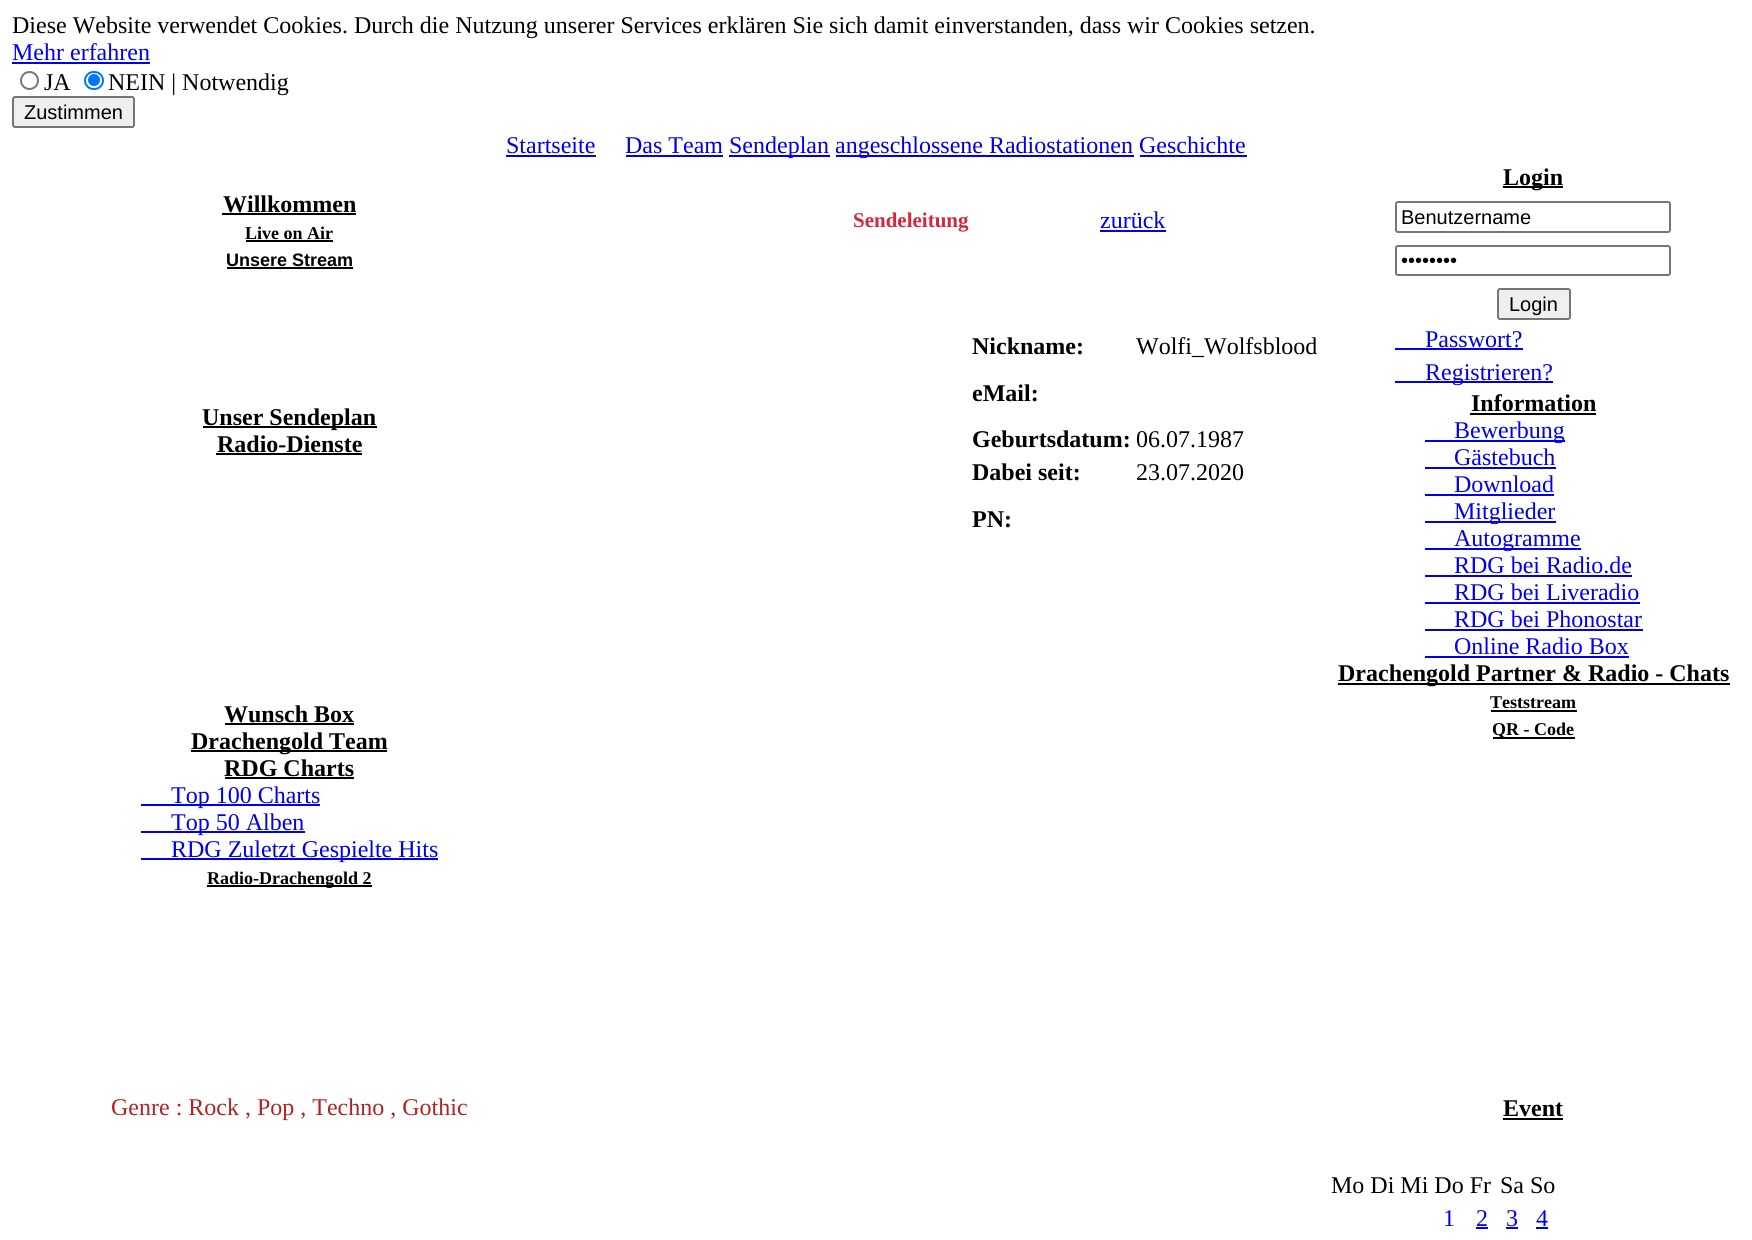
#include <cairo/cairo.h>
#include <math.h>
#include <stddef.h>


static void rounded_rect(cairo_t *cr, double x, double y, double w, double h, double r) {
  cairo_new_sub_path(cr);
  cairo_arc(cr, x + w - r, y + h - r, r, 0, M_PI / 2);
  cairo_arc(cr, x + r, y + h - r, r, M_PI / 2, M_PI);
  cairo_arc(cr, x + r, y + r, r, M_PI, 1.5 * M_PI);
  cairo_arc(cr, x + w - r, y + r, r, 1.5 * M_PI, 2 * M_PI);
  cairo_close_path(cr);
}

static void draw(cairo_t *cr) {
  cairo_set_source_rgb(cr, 1, 1, 1);
  cairo_paint(cr);
  cairo_set_source_rgb(cr, 0, 0, 238 / 255.0);
  cairo_rectangle(cr, 12, 62, 138, 2);
  cairo_fill(cr);
  cairo_arc(cr, 29.5, 80.5, 8.5, 0, 2 * M_PI);
  cairo_set_source_rgb(cr, 118 / 255.0, 118 / 255.0, 118 / 255.0);
  cairo_stroke(cr);
  rounded_rect(cr, 85, 72, 18, 17, 8.5);
  cairo_set_source_rgb(cr, 0, 117 / 255.0, 1);
  cairo_stroke(cr);
  cairo_arc(cr, 94, 80, 6, 0, 2 * M_PI);
  cairo_fill(cr);
  cairo_set_source_rgb(cr, 239 / 255.0, 239 / 255.0, 239 / 255.0);
  rounded_rect(cr, 13, 97, 121, 30, 2);
  cairo_fill_preserve(cr);
  cairo_set_source_rgb(cr, 118 / 255.0, 118 / 255.0, 118 / 255.0);
  cairo_stroke(cr);
  cairo_set_source_rgb(cr, 0, 0, 238 / 255.0);
  cairo_rectangle(cr, 506, 155, 90, 2);
  cairo_fill(cr);
  cairo_rectangle(cr, 626, 155, 97, 2);
  cairo_fill(cr);
  cairo_rectangle(cr, 729, 155, 101, 2);
  cairo_fill(cr);
  cairo_rectangle(cr, 836, 155, 298, 2);
  cairo_fill(cr);
  cairo_rectangle(cr, 1140, 155, 107, 2);
  cairo_fill(cr);
  cairo_set_source_rgb(cr, 0, 0, 0);
  cairo_rectangle(cr, 222, 213, 134, 2);
  cairo_fill(cr);
  cairo_rectangle(cr, 246, 240, 87, 2);
  cairo_fill(cr);
  cairo_rectangle(cr, 227, 267, 126, 2);
  cairo_fill(cr);
  cairo_rectangle(cr, 203, 426, 174, 2);
  cairo_fill(cr);
  cairo_rectangle(cr, 216, 453, 146, 2);
  cairo_fill(cr);
  cairo_rectangle(cr, 225, 723, 129, 2);
  cairo_fill(cr);
  cairo_rectangle(cr, 191, 750, 196, 2);
  cairo_fill(cr);
  cairo_rectangle(cr, 225, 777, 129, 2);
  cairo_fill(cr);
  cairo_set_source_rgb(cr, 0, 0, 238 / 255.0);
  cairo_rectangle(cr, 141, 804, 179, 2);
  cairo_fill(cr);
  cairo_rectangle(cr, 141, 831, 164, 2);
  cairo_fill(cr);
  cairo_rectangle(cr, 141, 858, 297, 2);
  cairo_fill(cr);
  cairo_set_source_rgb(cr, 0, 0, 0);
  cairo_rectangle(cr, 207, 885, 165, 2);
  cairo_fill(cr);
  cairo_set_source_rgb(cr, 0, 0, 238 / 255.0);
  cairo_rectangle(cr, 1100, 230, 66, 2);
  cairo_fill(cr);
  cairo_set_source_rgb(cr, 0, 0, 0);
  cairo_rectangle(cr, 1503, 186, 60, 2);
  cairo_fill(cr);
  rounded_rect(cr, 1396, 202, 274, 30, 2);
  cairo_set_source_rgb(cr, 118 / 255.0, 118 / 255.0, 118 / 255.0);
  cairo_stroke(cr);
  rounded_rect(cr, 1396, 246, 274, 29, 2);
  cairo_stroke(cr);
  cairo_set_source_rgb(cr, 239 / 255.0, 239 / 255.0, 239 / 255.0);
  rounded_rect(cr, 1498, 289, 72, 30, 2);
  cairo_fill_preserve(cr);
  cairo_set_source_rgb(cr, 118 / 255.0, 118 / 255.0, 118 / 255.0);
  cairo_stroke(cr);
  cairo_set_source_rgb(cr, 0, 0, 238 / 255.0);
  cairo_rectangle(cr, 1395, 348, 128, 2);
  cairo_fill(cr);
  cairo_rectangle(cr, 1395, 381, 158, 2);
  cairo_fill(cr);
  cairo_set_source_rgb(cr, 0, 0, 0);
  cairo_rectangle(cr, 1470, 413, 126, 2);
  cairo_fill(cr);
  cairo_set_source_rgb(cr, 0, 0, 238 / 255.0);
  cairo_rectangle(cr, 1425, 440, 140, 2);
  cairo_fill(cr);
  cairo_rectangle(cr, 1425, 467, 131, 2);
  cairo_fill(cr);
  cairo_rectangle(cr, 1425, 494, 129, 2);
  cairo_fill(cr);
  cairo_rectangle(cr, 1425, 521, 131, 2);
  cairo_fill(cr);
  cairo_rectangle(cr, 1425, 548, 156, 2);
  cairo_fill(cr);
  cairo_rectangle(cr, 1425, 575, 207, 2);
  cairo_fill(cr);
  cairo_rectangle(cr, 1425, 602, 215, 2);
  cairo_fill(cr);
  cairo_rectangle(cr, 1425, 629, 218, 2);
  cairo_fill(cr);
  cairo_rectangle(cr, 1425, 656, 204, 2);
  cairo_fill(cr);
  cairo_set_source_rgb(cr, 0, 0, 0);
  cairo_rectangle(cr, 1338, 683, 392, 2);
  cairo_fill(cr);
  cairo_rectangle(cr, 1491, 710, 86, 2);
  cairo_fill(cr);
  cairo_rectangle(cr, 1493, 737, 82, 2);
  cairo_fill(cr);
  cairo_rectangle(cr, 1503, 1118, 60, 2);
  cairo_fill(cr);
  cairo_set_source_rgb(cr, 0, 0, 238 / 255.0);
  cairo_rectangle(cr, 1476, 1227, 12, 2);
  cairo_fill(cr);
  cairo_rectangle(cr, 1506, 1227, 12, 2);
  cairo_fill(cr);
  cairo_rectangle(cr, 1536, 1227, 12, 2);
  cairo_fill(cr);
  cairo_select_font_face(cr, "Liberation Serif", CAIRO_FONT_SLANT_NORMAL, CAIRO_FONT_WEIGHT_NORMAL);
  cairo_set_font_size(cr, 24);
  cairo_set_source_rgb(cr, 0, 0, 0);
  cairo_move_to(cr, 12, 33);
  cairo_show_text(cr, "Diese Website verwendet Cookies. Durch die Nutzung unserer Services erklären Sie sich damit einverstanden, dass wir Cookies setzen.");
  cairo_set_source_rgb(cr, 0, 0, 238 / 255.0);
  cairo_move_to(cr, 12, 60);
  cairo_show_text(cr, "Mehr erfahren");
  cairo_set_source_rgb(cr, 0, 0, 0);
  cairo_move_to(cr, 44, 90);
  cairo_show_text(cr, "JA");
  cairo_move_to(cr, 108, 90);
  cairo_show_text(cr, "NEIN | Notwendig");
  cairo_select_font_face(cr, "Liberation Sans", CAIRO_FONT_SLANT_NORMAL, CAIRO_FONT_WEIGHT_NORMAL);
  cairo_set_font_size(cr, 20);
  cairo_move_to(cr, 24, 119);
  cairo_show_text(cr, "Zustimmen");
  cairo_select_font_face(cr, "Liberation Serif", CAIRO_FONT_SLANT_NORMAL, CAIRO_FONT_WEIGHT_NORMAL);
  cairo_set_font_size(cr, 24);
  cairo_set_source_rgb(cr, 0, 0, 238 / 255.0);
  cairo_move_to(cr, 506, 153);
  cairo_show_text(cr, "Startseite");
  cairo_move_to(cr, 625, 153);
  cairo_show_text(cr, "Das Team");
  cairo_move_to(cr, 729, 153);
  cairo_show_text(cr, "Sendeplan");
  cairo_move_to(cr, 835, 153);
  cairo_show_text(cr, "angeschlossene Radiostationen Geschichte");
  cairo_select_font_face(cr, "Liberation Serif", CAIRO_FONT_SLANT_NORMAL, CAIRO_FONT_WEIGHT_BOLD);
  cairo_set_source_rgb(cr, 0, 0, 0);
  cairo_move_to(cr, 223, 212);
  cairo_show_text(cr, "Willkommen");
  cairo_set_font_size(cr, 18);
  cairo_move_to(cr, 245, 239);
  cairo_show_text(cr, "Live on Air");
  cairo_select_font_face(cr, "Liberation Sans", CAIRO_FONT_SLANT_NORMAL, CAIRO_FONT_WEIGHT_BOLD);
  cairo_move_to(cr, 226, 266);
  cairo_show_text(cr, "Unsere Stream");
  cairo_select_font_face(cr, "Liberation Serif", CAIRO_FONT_SLANT_NORMAL, CAIRO_FONT_WEIGHT_BOLD);
  cairo_set_font_size(cr, 24);
  cairo_move_to(cr, 202, 425);
  cairo_show_text(cr, "Unser Sendeplan");
  cairo_move_to(cr, 217, 452);
  cairo_show_text(cr, "Radio-Dienste");
  cairo_move_to(cr, 224, 722);
  cairo_show_text(cr, "Wunsch Box");
  cairo_move_to(cr, 191, 749);
  cairo_show_text(cr, "Drachengold Team");
  cairo_move_to(cr, 224, 776);
  cairo_show_text(cr, "RDG Charts");
  cairo_select_font_face(cr, "Liberation Serif", CAIRO_FONT_SLANT_NORMAL, CAIRO_FONT_WEIGHT_NORMAL);
  cairo_set_source_rgb(cr, 0, 0, 238 / 255.0);
  cairo_move_to(cr, 171, 803);
  cairo_show_text(cr, "Top 100 Charts");
  cairo_move_to(cr, 171, 830);
  cairo_show_text(cr, "Top 50 Alben");
  cairo_move_to(cr, 171, 857);
  cairo_show_text(cr, "RDG Zuletzt Gespielte Hits");
  cairo_select_font_face(cr, "Liberation Serif", CAIRO_FONT_SLANT_NORMAL, CAIRO_FONT_WEIGHT_BOLD);
  cairo_set_font_size(cr, 18);
  cairo_set_source_rgb(cr, 0, 0, 0);
  cairo_move_to(cr, 207, 884);
  cairo_show_text(cr, "Radio-Drachengold 2");
  cairo_select_font_face(cr, "Liberation Serif", CAIRO_FONT_SLANT_NORMAL, CAIRO_FONT_WEIGHT_NORMAL);
  cairo_set_font_size(cr, 24);
  cairo_set_source_rgb(cr, 178 / 255.0, 34 / 255.0, 34 / 255.0);
  cairo_move_to(cr, 111, 1115);
  cairo_show_text(cr, "Genre : Rock , Pop , Techno , Gothic");
  cairo_select_font_face(cr, "Liberation Serif", CAIRO_FONT_SLANT_NORMAL, CAIRO_FONT_WEIGHT_BOLD);
  cairo_set_font_size(cr, 21);
  cairo_set_source_rgb(cr, 212 / 255.0, 38 / 255.0, 61 / 255.0);
  cairo_move_to(cr, 853, 227);
  cairo_show_text(cr, "Sendeleitung");
  cairo_select_font_face(cr, "Liberation Serif", CAIRO_FONT_SLANT_NORMAL, CAIRO_FONT_WEIGHT_NORMAL);
  cairo_set_font_size(cr, 24);
  cairo_set_source_rgb(cr, 0, 0, 238 / 255.0);
  cairo_move_to(cr, 1100, 228);
  cairo_show_text(cr, "zurück");
  cairo_select_font_face(cr, "Liberation Serif", CAIRO_FONT_SLANT_NORMAL, CAIRO_FONT_WEIGHT_BOLD);
  cairo_set_source_rgb(cr, 0, 0, 0);
  cairo_move_to(cr, 972, 354);
  cairo_show_text(cr, "Nickname:");
  cairo_select_font_face(cr, "Liberation Serif", CAIRO_FONT_SLANT_NORMAL, CAIRO_FONT_WEIGHT_NORMAL);
  cairo_move_to(cr, 1136, 354);
  cairo_show_text(cr, "Wolfi_Wolfsblood");
  cairo_select_font_face(cr, "Liberation Serif", CAIRO_FONT_SLANT_NORMAL, CAIRO_FONT_WEIGHT_BOLD);
  cairo_move_to(cr, 972, 401);
  cairo_show_text(cr, "eMail:");
  cairo_move_to(cr, 972, 447);
  cairo_show_text(cr, "Geburtsdatum:");
  cairo_select_font_face(cr, "Liberation Serif", CAIRO_FONT_SLANT_NORMAL, CAIRO_FONT_WEIGHT_NORMAL);
  cairo_move_to(cr, 1136, 447);
  cairo_show_text(cr, "06.07.1987");
  cairo_select_font_face(cr, "Liberation Serif", CAIRO_FONT_SLANT_NORMAL, CAIRO_FONT_WEIGHT_BOLD);
  cairo_move_to(cr, 972, 480);
  cairo_show_text(cr, "Dabei seit:");
  cairo_select_font_face(cr, "Liberation Serif", CAIRO_FONT_SLANT_NORMAL, CAIRO_FONT_WEIGHT_NORMAL);
  cairo_move_to(cr, 1136, 480);
  cairo_show_text(cr, "23.07.2020");
  cairo_select_font_face(cr, "Liberation Serif", CAIRO_FONT_SLANT_NORMAL, CAIRO_FONT_WEIGHT_BOLD);
  cairo_move_to(cr, 972, 527);
  cairo_show_text(cr, "PN:");
  cairo_move_to(cr, 1503, 185);
  cairo_show_text(cr, "Login");
  cairo_select_font_face(cr, "Liberation Sans", CAIRO_FONT_SLANT_NORMAL, CAIRO_FONT_WEIGHT_NORMAL);
  cairo_set_font_size(cr, 20);
  cairo_move_to(cr, 1401, 224);
  cairo_show_text(cr, "Benutzername");
  cairo_move_to(cr, 1401, 267);
  cairo_show_text(cr, "••••••••");
  cairo_move_to(cr, 1509, 311);
  cairo_show_text(cr, "Login");
  cairo_select_font_face(cr, "Liberation Serif", CAIRO_FONT_SLANT_NORMAL, CAIRO_FONT_WEIGHT_NORMAL);
  cairo_set_font_size(cr, 24);
  cairo_set_source_rgb(cr, 0, 0, 238 / 255.0);
  cairo_move_to(cr, 1425, 347);
  cairo_show_text(cr, "Passwort?");
  cairo_move_to(cr, 1425, 380);
  cairo_show_text(cr, "Registrieren?");
  cairo_select_font_face(cr, "Liberation Serif", CAIRO_FONT_SLANT_NORMAL, CAIRO_FONT_WEIGHT_BOLD);
  cairo_set_source_rgb(cr, 0, 0, 0);
  cairo_move_to(cr, 1471, 411);
  cairo_show_text(cr, "Information");
  cairo_select_font_face(cr, "Liberation Serif", CAIRO_FONT_SLANT_NORMAL, CAIRO_FONT_WEIGHT_NORMAL);
  cairo_set_source_rgb(cr, 0, 0, 238 / 255.0);
  cairo_move_to(cr, 1454, 438);
  cairo_show_text(cr, "Bewerbung");
  cairo_move_to(cr, 1454, 465);
  cairo_show_text(cr, "Gästebuch");
  cairo_move_to(cr, 1454, 492);
  cairo_show_text(cr, "Download");
  cairo_move_to(cr, 1454, 519);
  cairo_show_text(cr, "Mitglieder");
  cairo_move_to(cr, 1454, 546);
  cairo_show_text(cr, "Autogramme");
  cairo_move_to(cr, 1454, 573);
  cairo_show_text(cr, "RDG bei Radio.de");
  cairo_move_to(cr, 1454, 600);
  cairo_show_text(cr, "RDG bei Liveradio");
  cairo_move_to(cr, 1454, 627);
  cairo_show_text(cr, "RDG bei Phonostar");
  cairo_move_to(cr, 1454, 654);
  cairo_show_text(cr, "Online Radio Box");
  cairo_select_font_face(cr, "Liberation Serif", CAIRO_FONT_SLANT_NORMAL, CAIRO_FONT_WEIGHT_BOLD);
  cairo_set_source_rgb(cr, 0, 0, 0);
  cairo_move_to(cr, 1338, 681);
  cairo_show_text(cr, "Drachengold Partner & Radio - Chats");
  cairo_set_font_size(cr, 18);
  cairo_move_to(cr, 1490, 708);
  cairo_show_text(cr, "Teststream");
  cairo_move_to(cr, 1492, 735);
  cairo_show_text(cr, "QR - Code");
  cairo_set_font_size(cr, 24);
  cairo_move_to(cr, 1503, 1116);
  cairo_show_text(cr, "Event");
  cairo_select_font_face(cr, "Liberation Serif", CAIRO_FONT_SLANT_NORMAL, CAIRO_FONT_WEIGHT_NORMAL);
  cairo_move_to(cr, 1331, 1193);
  cairo_show_text(cr, "Mo Di Mi Do Fr");
  cairo_move_to(cr, 1500, 1193);
  cairo_show_text(cr, "Sa So");
  cairo_set_source_rgb(cr, 0, 0, 238 / 255.0);
  cairo_move_to(cr, 1443, 1226);
  cairo_show_text(cr, "1");
  cairo_move_to(cr, 1476, 1226);
  cairo_show_text(cr, "2");
  cairo_move_to(cr, 1506, 1226);
  cairo_show_text(cr, "3");
  cairo_move_to(cr, 1536, 1226);
  cairo_show_text(cr, "4");
}

int main(void) {
  cairo_surface_t *surface = cairo_image_surface_create(CAIRO_FORMAT_RGB24, 1752, 1240);
  cairo_t *cr = cairo_create(surface);
  cairo_font_options_t *options = cairo_font_options_create();
  cairo_font_options_set_hint_metrics(options, CAIRO_HINT_METRICS_OFF);
  cairo_font_options_set_hint_style(options, CAIRO_HINT_STYLE_NONE);
  cairo_set_font_options(cr, options);
  cairo_set_miter_limit(cr, 4);
  draw(cr);
  cairo_surface_write_to_png(surface, "out.png");
  cairo_font_options_destroy(options);
  cairo_destroy(cr);
  cairo_surface_destroy(surface);
  return 0;
}
